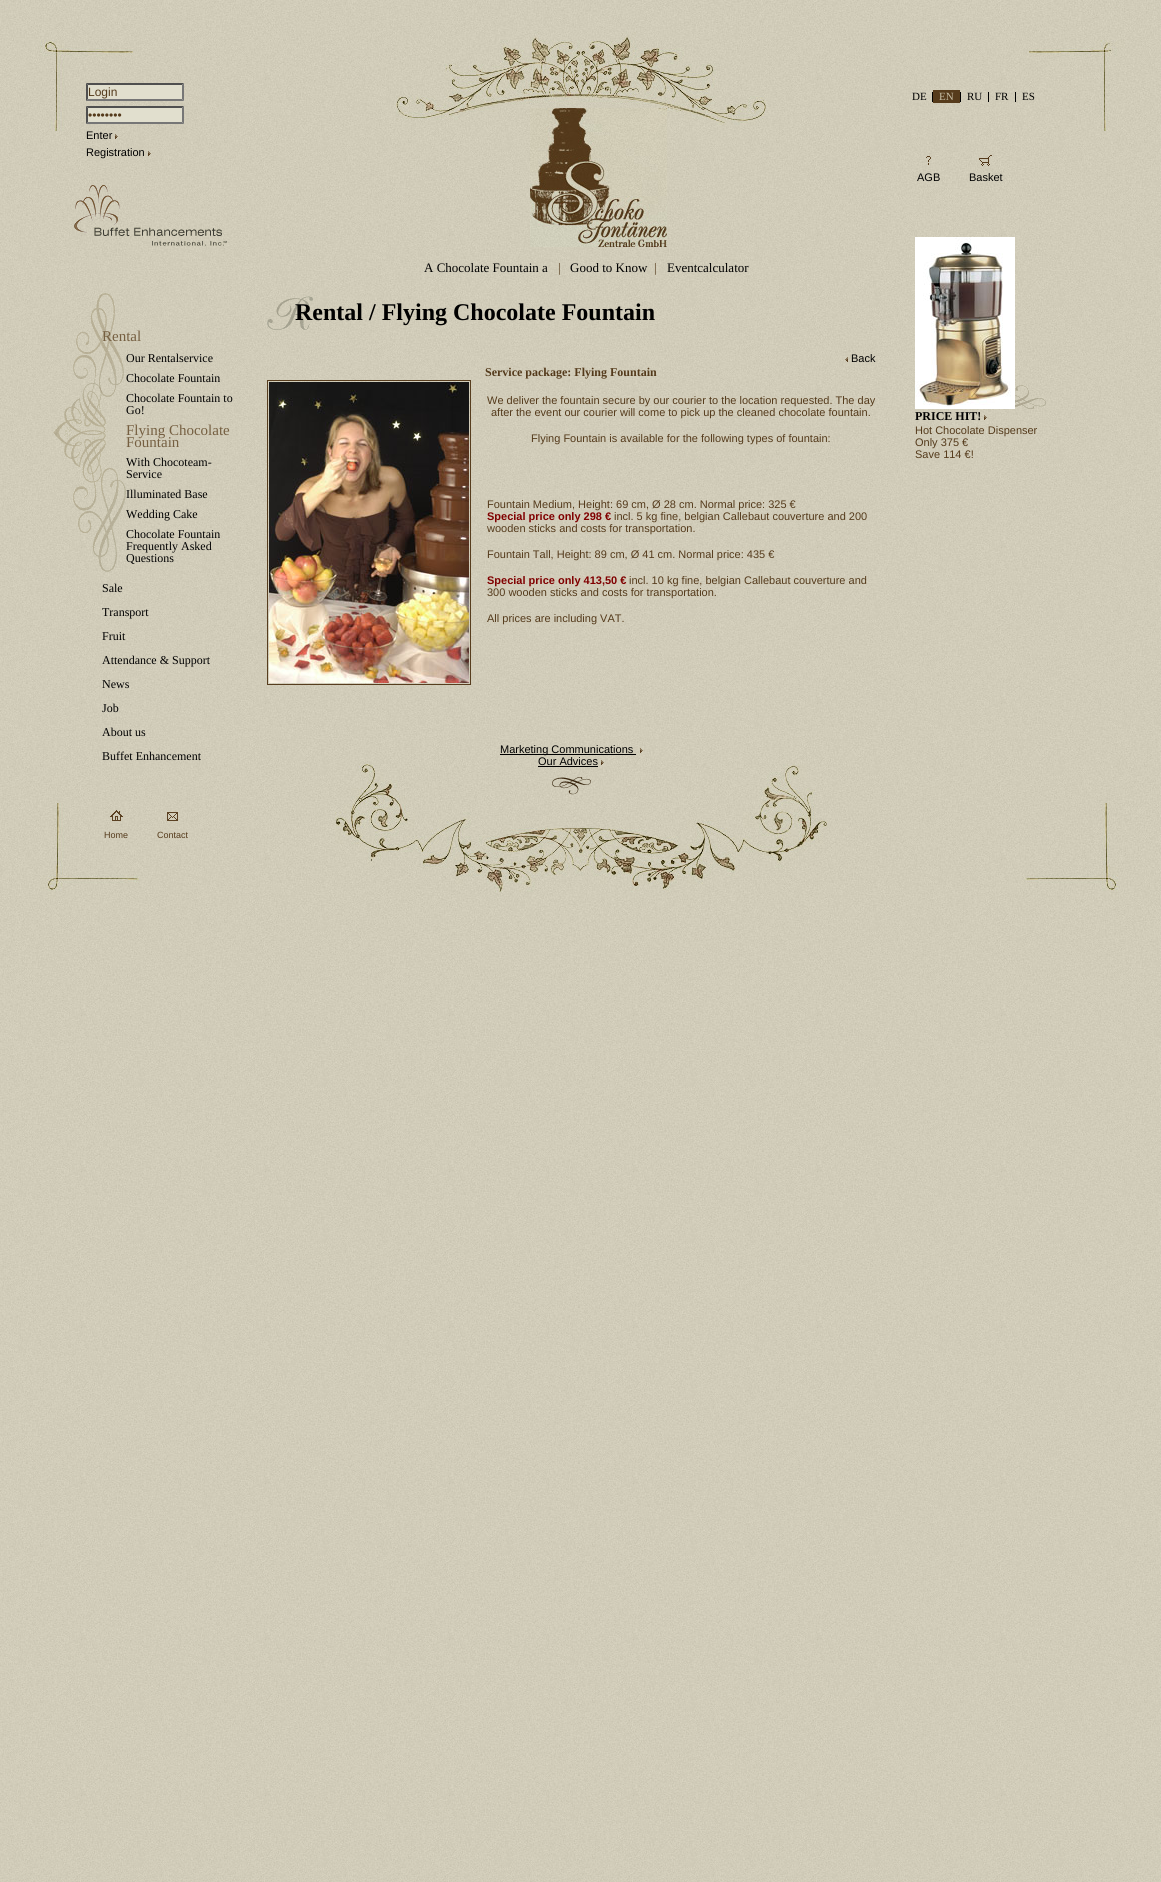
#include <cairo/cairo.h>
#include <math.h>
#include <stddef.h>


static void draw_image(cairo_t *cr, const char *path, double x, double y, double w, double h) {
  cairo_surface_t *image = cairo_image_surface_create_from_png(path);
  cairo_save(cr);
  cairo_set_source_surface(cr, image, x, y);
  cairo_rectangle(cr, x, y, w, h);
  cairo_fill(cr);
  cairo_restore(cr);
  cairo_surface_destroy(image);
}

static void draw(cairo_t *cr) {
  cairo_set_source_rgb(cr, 1, 1, 1);
  cairo_paint(cr);
  draw_image(cr, "images/1.png", 0, 0, 1161, 1882);
  draw_image(cr, "images/2.png", 0, 0, 133, 131);
  draw_image(cr, "images/3.png", 1029, 0, 132, 131);
  draw_image(cr, "images/4.png", 1022, 803, 139, 147);
  draw_image(cr, "images/5.png", 0, 803, 139, 147);
  draw_image(cr, "images/6.png", 396, 0, 370, 125);
  draw_image(cr, "images/7.png", 335, 764, 492, 186);
  cairo_set_source_rgb(cr, 225 / 255.0, 223 / 255.0, 206 / 255.0);
  cairo_rectangle(cr, 86, 83, 98, 18);
  cairo_fill(cr);
  cairo_set_source_rgb(cr, 79 / 255.0, 79 / 255.0, 79 / 255.0);
  cairo_new_path(cr);
  cairo_move_to(cr, 86, 83);
  cairo_line_to(cr, 184, 83);
  cairo_line_to(cr, 182, 85);
  cairo_line_to(cr, 88, 85);
  cairo_close_path(cr);
  cairo_fill(cr);
  cairo_set_source_rgb(cr, 118 / 255.0, 118 / 255.0, 118 / 255.0);
  cairo_new_path(cr);
  cairo_move_to(cr, 184, 83);
  cairo_line_to(cr, 184, 101);
  cairo_line_to(cr, 182, 99);
  cairo_line_to(cr, 182, 85);
  cairo_close_path(cr);
  cairo_fill(cr);
  cairo_new_path(cr);
  cairo_move_to(cr, 184, 101);
  cairo_line_to(cr, 86, 101);
  cairo_line_to(cr, 88, 99);
  cairo_line_to(cr, 182, 99);
  cairo_close_path(cr);
  cairo_fill(cr);
  cairo_set_source_rgb(cr, 79 / 255.0, 79 / 255.0, 79 / 255.0);
  cairo_new_path(cr);
  cairo_move_to(cr, 86, 101);
  cairo_line_to(cr, 86, 83);
  cairo_line_to(cr, 88, 85);
  cairo_line_to(cr, 88, 99);
  cairo_close_path(cr);
  cairo_fill(cr);
  cairo_set_source_rgb(cr, 225 / 255.0, 223 / 255.0, 206 / 255.0);
  cairo_rectangle(cr, 86, 106, 98, 18);
  cairo_fill(cr);
  cairo_set_source_rgb(cr, 79 / 255.0, 79 / 255.0, 79 / 255.0);
  cairo_new_path(cr);
  cairo_move_to(cr, 86, 106);
  cairo_line_to(cr, 184, 106);
  cairo_line_to(cr, 182, 108);
  cairo_line_to(cr, 88, 108);
  cairo_close_path(cr);
  cairo_fill(cr);
  cairo_set_source_rgb(cr, 118 / 255.0, 118 / 255.0, 118 / 255.0);
  cairo_new_path(cr);
  cairo_move_to(cr, 184, 106);
  cairo_line_to(cr, 184, 124);
  cairo_line_to(cr, 182, 122);
  cairo_line_to(cr, 182, 108);
  cairo_close_path(cr);
  cairo_fill(cr);
  cairo_new_path(cr);
  cairo_move_to(cr, 184, 124);
  cairo_line_to(cr, 86, 124);
  cairo_line_to(cr, 88, 122);
  cairo_line_to(cr, 182, 122);
  cairo_close_path(cr);
  cairo_fill(cr);
  cairo_set_source_rgb(cr, 79 / 255.0, 79 / 255.0, 79 / 255.0);
  cairo_new_path(cr);
  cairo_move_to(cr, 86, 124);
  cairo_line_to(cr, 86, 106);
  cairo_line_to(cr, 88, 108);
  cairo_line_to(cr, 88, 122);
  cairo_close_path(cr);
  cairo_fill(cr);
  draw_image(cr, "images/8.png", 115, 134, 3, 5);
  draw_image(cr, "images/9.png", 148, 151, 3, 5);
  draw_image(cr, "images/10.png", 74, 185, 153, 61);
  draw_image(cr, "images/11.png", 53, 293, 73, 279);
  draw_image(cr, "images/12.png", 530, 108, 137, 139);
  draw_image(cr, "images/13.png", 267, 296, 46, 34);
  draw_image(cr, "images/14.png", 845, 357, 3, 5);
  cairo_rectangle(cr, 267.5, 380.5, 203, 304);
  cairo_set_source_rgb(cr, 87 / 255.0, 61 / 255.0, 30 / 255.0);
  cairo_set_line_width(cr, 1);
  cairo_stroke(cr);
  draw_image(cr, "images/15.png", 269, 382, 200, 301);
  cairo_set_source_rgb(cr, 0, 0, 0);
  cairo_rectangle(cr, 500, 754, 136, 1);
  cairo_fill(cr);
  draw_image(cr, "images/16.png", 640, 748, 3, 5);
  cairo_rectangle(cr, 538, 766, 60, 1);
  cairo_fill(cr);
  draw_image(cr, "images/17.png", 601, 760, 3, 5);
  draw_image(cr, "images/18.png", 552, 777, 39, 18);
  cairo_rectangle(cr, 932, 92, 1, 10);
  cairo_fill(cr);
  cairo_set_source_rgb(cr, 86 / 255.0, 59 / 255.0, 27 / 255.0);
  cairo_rectangle(cr, 933, 90, 27, 13);
  cairo_fill(cr);
  cairo_set_source_rgb(cr, 0, 0, 0);
  cairo_rectangle(cr, 960, 92, 1, 10);
  cairo_fill(cr);
  cairo_rectangle(cr, 988, 92, 1, 10);
  cairo_fill(cr);
  cairo_rectangle(cr, 1015, 92, 1, 10);
  cairo_fill(cr);
  draw_image(cr, "images/19.png", 926, 156, 5, 9);
  draw_image(cr, "images/20.png", 979, 155, 13, 11);
  draw_image(cr, "images/21.png", 1015, 385, 31, 24);
  draw_image(cr, "images/22.png", 915, 237, 100, 172);
  draw_image(cr, "images/23.png", 984, 415, 3, 5);
  draw_image(cr, "images/24.png", 110, 810, 13, 11);
  draw_image(cr, "images/25.png", 167, 812, 11, 9);
  cairo_select_font_face(cr, "Liberation Sans", CAIRO_FONT_SLANT_NORMAL, CAIRO_FONT_WEIGHT_NORMAL);
  cairo_set_font_size(cr, 12);
  cairo_set_source_rgb(cr, 84 / 255.0, 58 / 255.0, 27 / 255.0);
  cairo_move_to(cr, 88, 96);
  cairo_show_text(cr, "Login");
  cairo_move_to(cr, 88, 119);
  cairo_show_text(cr, "••••••••");
  cairo_set_font_size(cr, 11);
  cairo_set_source_rgb(cr, 0, 0, 0);
  cairo_move_to(cr, 86, 139);
  cairo_show_text(cr, "Enter");
  cairo_move_to(cr, 86, 156);
  cairo_show_text(cr, "Registration");
  cairo_select_font_face(cr, "Liberation Serif", CAIRO_FONT_SLANT_NORMAL, CAIRO_FONT_WEIGHT_NORMAL);
  cairo_set_font_size(cr, 15);
  cairo_set_source_rgb(cr, 117 / 255.0, 95 / 255.0, 65 / 255.0);
  cairo_move_to(cr, 102, 341);
  cairo_show_text(cr, "Rental");
  cairo_set_font_size(cr, 12);
  cairo_set_source_rgb(cr, 0, 0, 0);
  cairo_move_to(cr, 126, 362);
  cairo_show_text(cr, "Our Rentalservice");
  cairo_move_to(cr, 126, 382);
  cairo_show_text(cr, "Chocolate Fountain");
  cairo_move_to(cr, 126, 402);
  cairo_show_text(cr, "Chocolate Fountain to");
  cairo_move_to(cr, 126, 414);
  cairo_show_text(cr, "Go!");
  cairo_set_font_size(cr, 15);
  cairo_set_source_rgb(cr, 117 / 255.0, 95 / 255.0, 65 / 255.0);
  cairo_move_to(cr, 126, 435);
  cairo_show_text(cr, "Flying Chocolate");
  cairo_move_to(cr, 126, 447);
  cairo_show_text(cr, "Fountain");
  cairo_set_font_size(cr, 12);
  cairo_set_source_rgb(cr, 0, 0, 0);
  cairo_move_to(cr, 126, 466);
  cairo_show_text(cr, "With Chocoteam-");
  cairo_move_to(cr, 126, 478);
  cairo_show_text(cr, "Service");
  cairo_move_to(cr, 126, 498);
  cairo_show_text(cr, "Illuminated Base");
  cairo_move_to(cr, 126, 518);
  cairo_show_text(cr, "Wedding Cake");
  cairo_move_to(cr, 126, 538);
  cairo_show_text(cr, "Chocolate Fountain");
  cairo_move_to(cr, 126, 550);
  cairo_show_text(cr, "Frequently Asked");
  cairo_move_to(cr, 126, 562);
  cairo_show_text(cr, "Questions");
  cairo_move_to(cr, 102, 592);
  cairo_show_text(cr, "Sale");
  cairo_move_to(cr, 102, 616);
  cairo_show_text(cr, "Transport");
  cairo_move_to(cr, 102, 640);
  cairo_show_text(cr, "Fruit");
  cairo_move_to(cr, 102, 664);
  cairo_show_text(cr, "Attendance & Support");
  cairo_move_to(cr, 102, 688);
  cairo_show_text(cr, "News");
  cairo_move_to(cr, 102, 712);
  cairo_show_text(cr, "Job");
  cairo_move_to(cr, 102, 736);
  cairo_show_text(cr, "About us");
  cairo_move_to(cr, 102, 760);
  cairo_show_text(cr, "Buffet Enhancement");
  cairo_set_font_size(cr, 13);
  cairo_move_to(cr, 424, 272);
  cairo_show_text(cr, "A Chocolate Fountain a");
  cairo_set_source_rgb(cr, 84 / 255.0, 58 / 255.0, 27 / 255.0);
  cairo_move_to(cr, 558, 272);
  cairo_show_text(cr, "|");
  cairo_set_source_rgb(cr, 0, 0, 0);
  cairo_move_to(cr, 570, 272);
  cairo_show_text(cr, "Good to Know");
  cairo_set_source_rgb(cr, 84 / 255.0, 58 / 255.0, 27 / 255.0);
  cairo_move_to(cr, 654, 272);
  cairo_show_text(cr, "|");
  cairo_set_source_rgb(cr, 0, 0, 0);
  cairo_move_to(cr, 667, 272);
  cairo_show_text(cr, "Eventcalculator");
  cairo_select_font_face(cr, "Liberation Serif", CAIRO_FONT_SLANT_NORMAL, CAIRO_FONT_WEIGHT_BOLD);
  cairo_set_font_size(cr, 24);
  cairo_move_to(cr, 295, 320);
  cairo_show_text(cr, "Rental / Flying Chocolate Fountain");
  cairo_select_font_face(cr, "Liberation Sans", CAIRO_FONT_SLANT_NORMAL, CAIRO_FONT_WEIGHT_NORMAL);
  cairo_set_font_size(cr, 11);
  cairo_move_to(cr, 851, 362);
  cairo_show_text(cr, "Back");
  cairo_select_font_face(cr, "Liberation Serif", CAIRO_FONT_SLANT_NORMAL, CAIRO_FONT_WEIGHT_BOLD);
  cairo_set_font_size(cr, 12);
  cairo_set_source_rgb(cr, 84 / 255.0, 58 / 255.0, 27 / 255.0);
  cairo_move_to(cr, 485, 376);
  cairo_show_text(cr, "Service package: Flying Fountain");
  cairo_select_font_face(cr, "Liberation Sans", CAIRO_FONT_SLANT_NORMAL, CAIRO_FONT_WEIGHT_NORMAL);
  cairo_set_font_size(cr, 11);
  cairo_move_to(cr, 487, 404);
  cairo_show_text(cr, "We deliver the fountain secure by our courier to the location requested. The day");
  cairo_move_to(cr, 491, 416);
  cairo_show_text(cr, "after the event our courier will come to pick up the cleaned chocolate fountain.");
  cairo_move_to(cr, 531, 442);
  cairo_show_text(cr, "Flying Fountain is available for the following types of fountain:");
  cairo_move_to(cr, 487, 508);
  cairo_show_text(cr, "Fountain Medium, Height: 69 cm, Ø 28 cm. Normal price: 325 €");
  cairo_select_font_face(cr, "Liberation Sans", CAIRO_FONT_SLANT_NORMAL, CAIRO_FONT_WEIGHT_BOLD);
  cairo_set_source_rgb(cr, 128 / 255.0, 0, 0);
  cairo_move_to(cr, 487, 520);
  cairo_show_text(cr, "Special price only 298 €");
  cairo_select_font_face(cr, "Liberation Sans", CAIRO_FONT_SLANT_NORMAL, CAIRO_FONT_WEIGHT_NORMAL);
  cairo_set_source_rgb(cr, 84 / 255.0, 58 / 255.0, 27 / 255.0);
  cairo_move_to(cr, 614, 520);
  cairo_show_text(cr, "incl. 5 kg fine, belgian Callebaut couverture and 200");
  cairo_move_to(cr, 487, 532);
  cairo_show_text(cr, "wooden sticks and costs for transportation.");
  cairo_move_to(cr, 487, 558);
  cairo_show_text(cr, "Fountain Tall, Height: 89 cm, Ø 41 cm. Normal price: 435 €");
  cairo_select_font_face(cr, "Liberation Sans", CAIRO_FONT_SLANT_NORMAL, CAIRO_FONT_WEIGHT_BOLD);
  cairo_set_source_rgb(cr, 128 / 255.0, 0, 0);
  cairo_move_to(cr, 487, 584);
  cairo_show_text(cr, "Special price only 413,50 €");
  cairo_select_font_face(cr, "Liberation Sans", CAIRO_FONT_SLANT_NORMAL, CAIRO_FONT_WEIGHT_NORMAL);
  cairo_set_source_rgb(cr, 84 / 255.0, 58 / 255.0, 27 / 255.0);
  cairo_move_to(cr, 629, 584);
  cairo_show_text(cr, "incl. 10 kg fine, belgian Callebaut couverture and");
  cairo_move_to(cr, 487, 596);
  cairo_show_text(cr, "300 wooden sticks and costs for transportation.");
  cairo_move_to(cr, 487, 622);
  cairo_show_text(cr, "All prices are including VAT.");
  cairo_set_source_rgb(cr, 0, 0, 0);
  cairo_move_to(cr, 500, 753);
  cairo_show_text(cr, "Marketing Communications");
  cairo_move_to(cr, 538, 765);
  cairo_show_text(cr, "Our Advices");
  cairo_select_font_face(cr, "Liberation Serif", CAIRO_FONT_SLANT_NORMAL, CAIRO_FONT_WEIGHT_NORMAL);
  cairo_move_to(cr, 912, 100);
  cairo_show_text(cr, "DE");
  cairo_set_source_rgb(cr, 199 / 255.0, 191 / 255.0, 167 / 255.0);
  cairo_move_to(cr, 939, 100);
  cairo_show_text(cr, "EN");
  cairo_set_source_rgb(cr, 0, 0, 0);
  cairo_move_to(cr, 967, 100);
  cairo_show_text(cr, "RU");
  cairo_move_to(cr, 995, 100);
  cairo_show_text(cr, "FR");
  cairo_move_to(cr, 1022, 100);
  cairo_show_text(cr, "ES");
  cairo_select_font_face(cr, "Liberation Sans", CAIRO_FONT_SLANT_NORMAL, CAIRO_FONT_WEIGHT_NORMAL);
  cairo_move_to(cr, 917, 181);
  cairo_show_text(cr, "AGB");
  cairo_move_to(cr, 969, 181);
  cairo_show_text(cr, "Basket");
  cairo_select_font_face(cr, "Liberation Serif", CAIRO_FONT_SLANT_NORMAL, CAIRO_FONT_WEIGHT_BOLD);
  cairo_set_font_size(cr, 12);
  cairo_move_to(cr, 915, 420);
  cairo_show_text(cr, "PRICE HIT!");
  cairo_select_font_face(cr, "Liberation Sans", CAIRO_FONT_SLANT_NORMAL, CAIRO_FONT_WEIGHT_NORMAL);
  cairo_set_font_size(cr, 11);
  cairo_set_source_rgb(cr, 84 / 255.0, 58 / 255.0, 27 / 255.0);
  cairo_move_to(cr, 915, 434);
  cairo_show_text(cr, "Hot Chocolate Dispenser");
  cairo_move_to(cr, 915, 446);
  cairo_show_text(cr, "Only 375 €");
  cairo_move_to(cr, 915, 458);
  cairo_show_text(cr, "Save 114 €!");
  cairo_set_font_size(cr, 9);
  cairo_move_to(cr, 104, 838);
  cairo_show_text(cr, "Home");
  cairo_move_to(cr, 157, 838);
  cairo_show_text(cr, "Contact");
}

int main(void) {
  cairo_surface_t *surface = cairo_image_surface_create(CAIRO_FORMAT_RGB24, 1161, 1882);
  cairo_t *cr = cairo_create(surface);
  cairo_font_options_t *options = cairo_font_options_create();
  cairo_font_options_set_hint_metrics(options, CAIRO_HINT_METRICS_OFF);
  cairo_font_options_set_hint_style(options, CAIRO_HINT_STYLE_NONE);
  cairo_set_font_options(cr, options);
  cairo_set_miter_limit(cr, 4);
  draw(cr);
  cairo_surface_write_to_png(surface, "out.png");
  cairo_font_options_destroy(options);
  cairo_destroy(cr);
  cairo_surface_destroy(surface);
  return 0;
}
